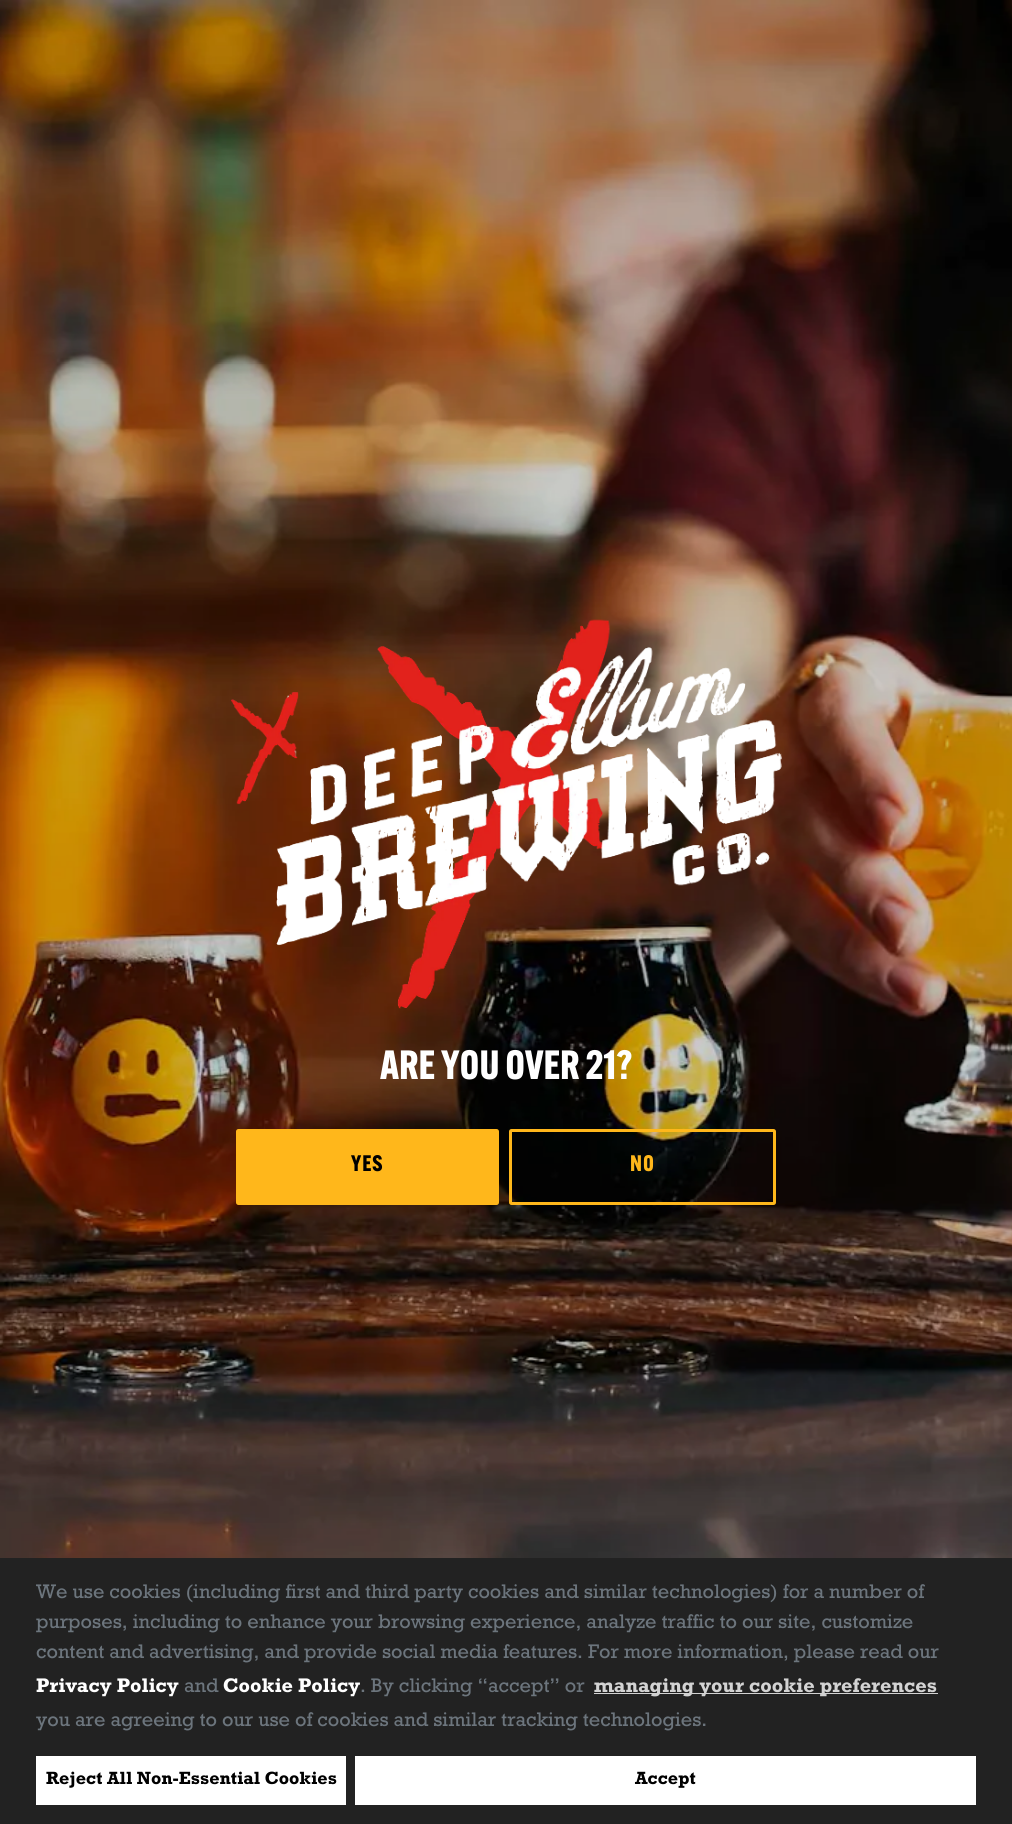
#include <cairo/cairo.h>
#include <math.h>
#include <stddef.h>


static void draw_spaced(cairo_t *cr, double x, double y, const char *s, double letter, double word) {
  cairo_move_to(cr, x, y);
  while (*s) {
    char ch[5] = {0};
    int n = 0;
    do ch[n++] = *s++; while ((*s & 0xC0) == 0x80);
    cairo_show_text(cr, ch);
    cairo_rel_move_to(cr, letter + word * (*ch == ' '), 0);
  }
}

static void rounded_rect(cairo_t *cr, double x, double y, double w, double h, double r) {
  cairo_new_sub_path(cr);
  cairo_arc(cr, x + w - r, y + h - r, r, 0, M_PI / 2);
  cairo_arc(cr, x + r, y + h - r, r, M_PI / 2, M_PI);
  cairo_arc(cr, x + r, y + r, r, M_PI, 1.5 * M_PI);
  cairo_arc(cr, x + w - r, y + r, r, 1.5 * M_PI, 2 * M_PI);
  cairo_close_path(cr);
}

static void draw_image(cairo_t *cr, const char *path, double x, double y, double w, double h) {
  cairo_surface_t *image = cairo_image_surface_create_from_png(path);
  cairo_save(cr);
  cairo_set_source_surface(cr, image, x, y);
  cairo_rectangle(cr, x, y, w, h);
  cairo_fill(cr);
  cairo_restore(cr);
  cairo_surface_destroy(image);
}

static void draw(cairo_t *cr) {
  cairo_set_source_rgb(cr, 1, 1, 1);
  cairo_paint(cr);
  draw_image(cr, "images/1.png", 0, 0, 1012, 1558);
  draw_image(cr, "images/2.png", 231, 619, 551, 390);
  cairo_set_source_rgb(cr, 1, 183 / 255.0, 27 / 255.0);
  rounded_rect(cr, 236, 1129, 263, 76, 2.5);
  cairo_fill(cr);
  rounded_rect(cr, 510.5, 1130.5, 264, 73, 1);
  cairo_set_line_width(cr, 3);
  cairo_stroke(cr);
  cairo_set_source_rgb(cr, 34 / 255.0, 34 / 255.0, 34 / 255.0);
  cairo_rectangle(cr, 0, 1558, 1012, 266);
  cairo_fill(cr);
  cairo_set_source_rgb(cr, 211 / 255.0, 211 / 255.0, 211 / 255.0);
  cairo_rectangle(cr, 594, 1693, 344, 1);
  cairo_fill(cr);
  cairo_set_source_rgb(cr, 1, 1, 1);
  cairo_rectangle(cr, 36, 1756, 310, 49);
  cairo_fill(cr);
  cairo_rectangle(cr, 355, 1756, 621, 49);
  cairo_fill(cr);
  cairo_select_font_face(cr, "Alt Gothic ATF", CAIRO_FONT_SLANT_NORMAL, CAIRO_FONT_WEIGHT_BOLD);
  cairo_set_font_size(cr, 40);
  cairo_move_to(cr, 380, 1079);
  cairo_show_text(cr, "ARE YOU OVER 21?");
  cairo_set_font_size(cr, 22);
  cairo_set_source_rgb(cr, 0, 0, 0);
  draw_spaced(cr, 351, 1171, "YES", 1, 0);
  cairo_set_source_rgb(cr, 1, 183 / 255.0, 27 / 255.0);
  draw_spaced(cr, 630, 1171, "NO", 1, 0);
  cairo_select_font_face(cr, "Rockwell", CAIRO_FONT_SLANT_NORMAL, CAIRO_FONT_WEIGHT_NORMAL);
  cairo_set_font_size(cr, 20);
  cairo_set_source_rgb(cr, 108 / 255.0, 117 / 255.0, 125 / 255.0);
  cairo_move_to(cr, 36, 1598);
  cairo_show_text(cr, "We use cookies (including first and third party cookies and similar technologies) for a number of");
  cairo_move_to(cr, 36, 1628);
  cairo_show_text(cr, "purposes, including to enhance your browsing experience, analyze traffic to our site, customize");
  cairo_move_to(cr, 36, 1658);
  cairo_show_text(cr, "content and advertising, and provide social media features. For more information, please read our");
  cairo_select_font_face(cr, "Rockwell", CAIRO_FONT_SLANT_NORMAL, CAIRO_FONT_WEIGHT_BOLD);
  cairo_set_source_rgb(cr, 1, 1, 1);
  cairo_move_to(cr, 36, 1692);
  cairo_show_text(cr, "Privacy Policy");
  cairo_select_font_face(cr, "Rockwell", CAIRO_FONT_SLANT_NORMAL, CAIRO_FONT_WEIGHT_NORMAL);
  cairo_set_source_rgb(cr, 108 / 255.0, 117 / 255.0, 125 / 255.0);
  cairo_move_to(cr, 184, 1692);
  cairo_show_text(cr, "and");
  cairo_select_font_face(cr, "Rockwell", CAIRO_FONT_SLANT_NORMAL, CAIRO_FONT_WEIGHT_BOLD);
  cairo_set_source_rgb(cr, 1, 1, 1);
  cairo_move_to(cr, 223, 1692);
  cairo_show_text(cr, "Cookie Policy");
  cairo_select_font_face(cr, "Rockwell", CAIRO_FONT_SLANT_NORMAL, CAIRO_FONT_WEIGHT_NORMAL);
  cairo_set_source_rgb(cr, 108 / 255.0, 117 / 255.0, 125 / 255.0);
  cairo_move_to(cr, 360, 1692);
  cairo_show_text(cr, ". By clicking “accept” or");
  cairo_select_font_face(cr, "Rockwell", CAIRO_FONT_SLANT_NORMAL, CAIRO_FONT_WEIGHT_BOLD);
  cairo_set_source_rgb(cr, 211 / 255.0, 211 / 255.0, 211 / 255.0);
  cairo_move_to(cr, 594, 1692);
  cairo_show_text(cr, "managing your cookie preferences");
  cairo_select_font_face(cr, "Rockwell", CAIRO_FONT_SLANT_NORMAL, CAIRO_FONT_WEIGHT_NORMAL);
  cairo_set_source_rgb(cr, 108 / 255.0, 117 / 255.0, 125 / 255.0);
  cairo_move_to(cr, 36, 1726);
  cairo_show_text(cr, "you are agreeing to our use of cookies and similar tracking technologies.");
  cairo_select_font_face(cr, "Rockwell", CAIRO_FONT_SLANT_NORMAL, CAIRO_FONT_WEIGHT_BOLD);
  cairo_set_font_size(cr, 18);
  cairo_set_source_rgb(cr, 0, 0, 0);
  cairo_move_to(cr, 46, 1784);
  cairo_show_text(cr, "Reject All Non-Essential Cookies");
  cairo_move_to(cr, 635, 1784);
  cairo_show_text(cr, "Accept");
}

int main(void) {
  cairo_surface_t *surface = cairo_image_surface_create(CAIRO_FORMAT_RGB24, 1012, 1824);
  cairo_t *cr = cairo_create(surface);
  cairo_font_options_t *options = cairo_font_options_create();
  cairo_font_options_set_hint_metrics(options, CAIRO_HINT_METRICS_OFF);
  cairo_font_options_set_hint_style(options, CAIRO_HINT_STYLE_NONE);
  cairo_set_font_options(cr, options);
  cairo_set_miter_limit(cr, 4);
  draw(cr);
  cairo_surface_write_to_png(surface, "out.png");
  cairo_font_options_destroy(options);
  cairo_destroy(cr);
  cairo_surface_destroy(surface);
  return 0;
}
